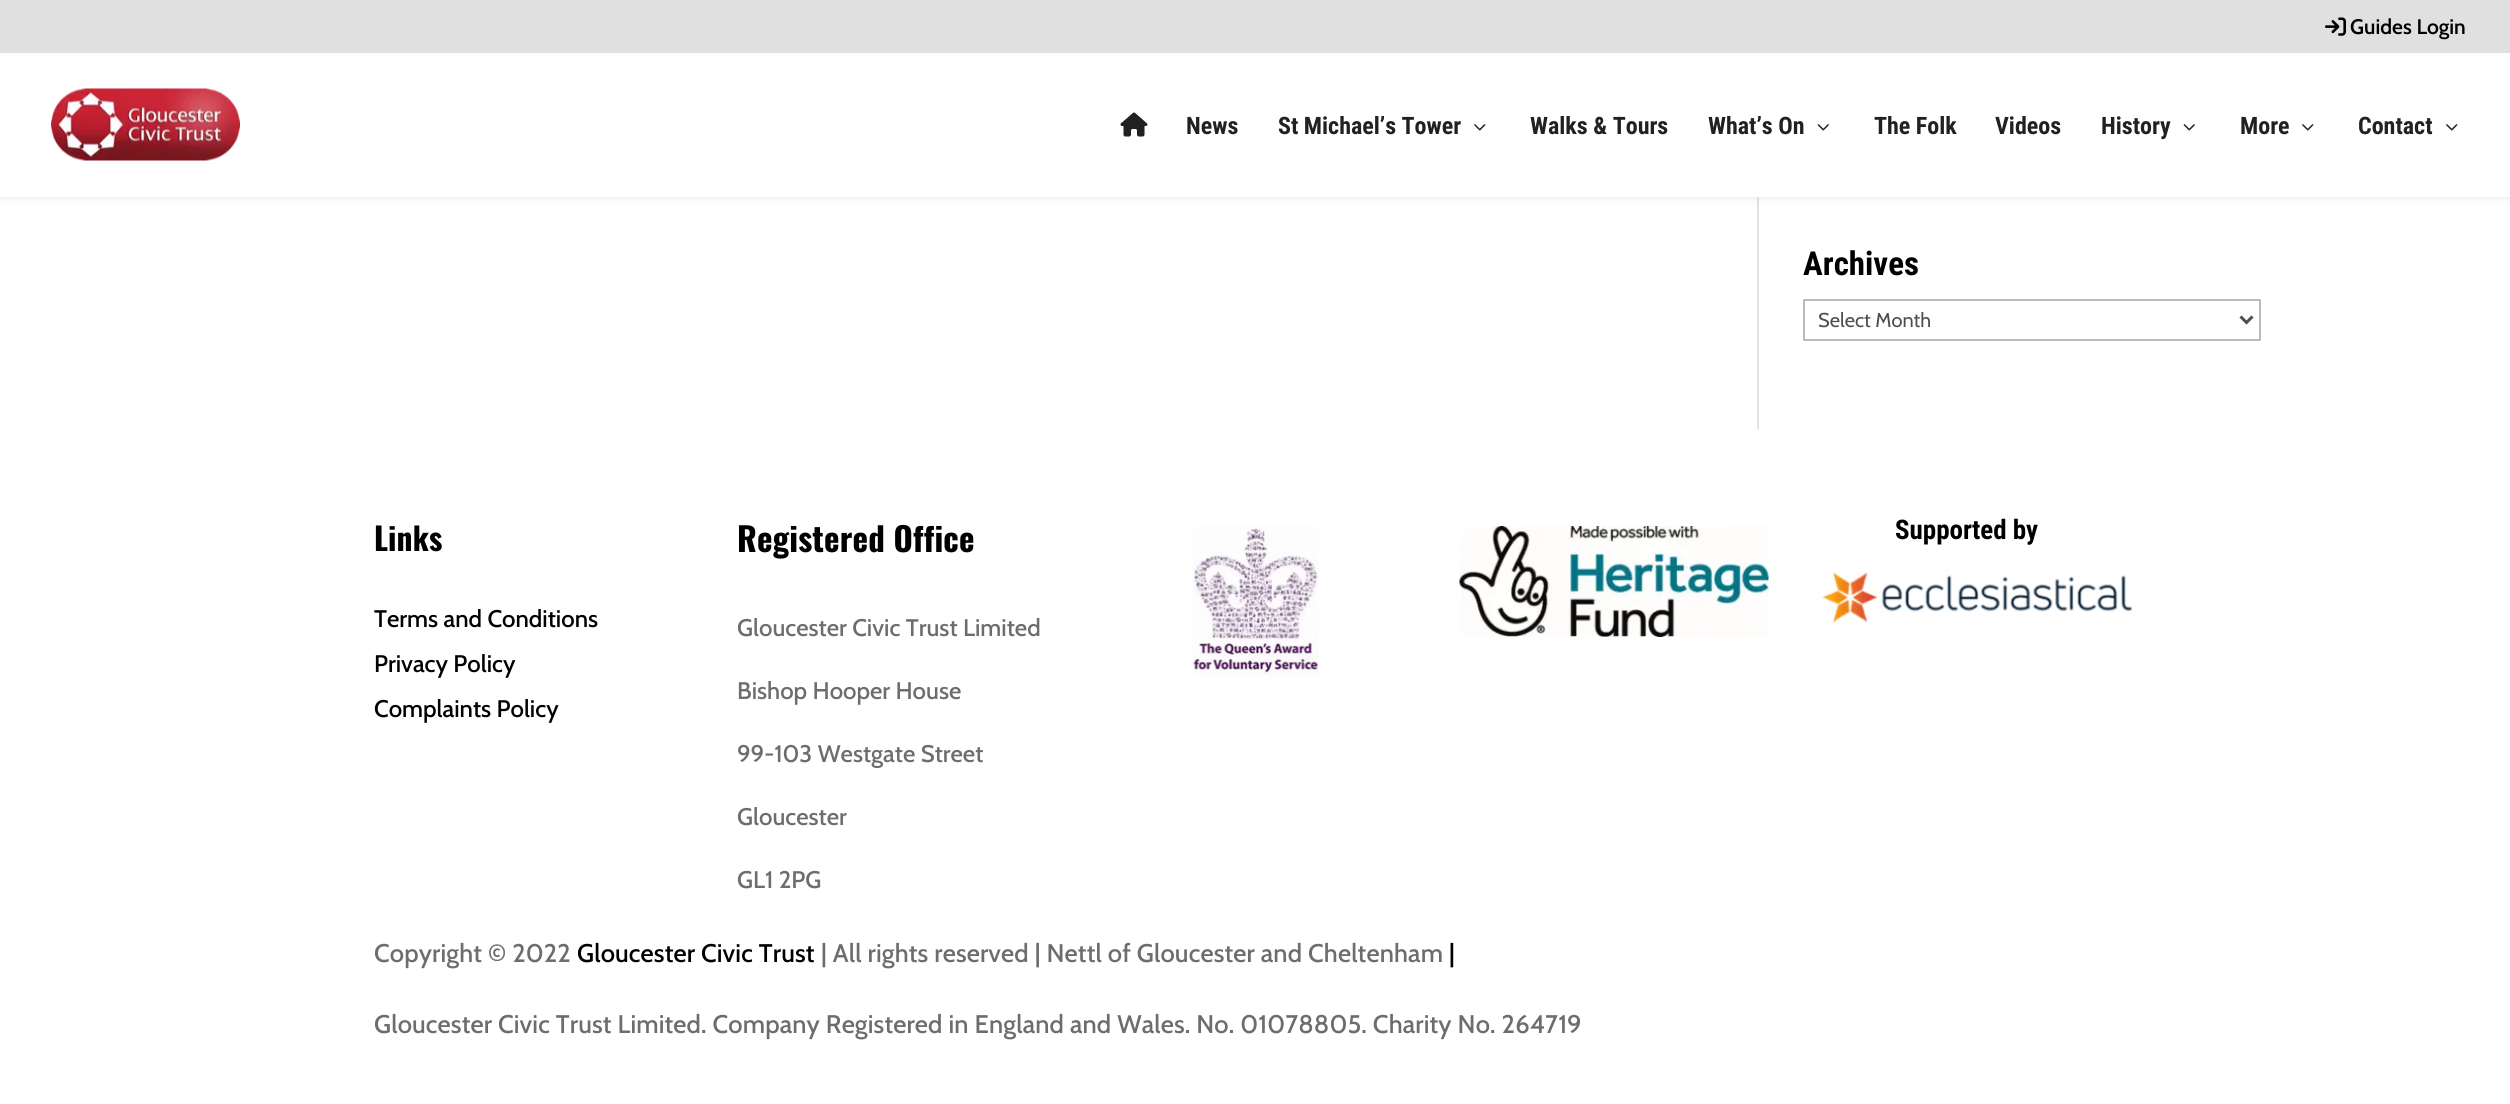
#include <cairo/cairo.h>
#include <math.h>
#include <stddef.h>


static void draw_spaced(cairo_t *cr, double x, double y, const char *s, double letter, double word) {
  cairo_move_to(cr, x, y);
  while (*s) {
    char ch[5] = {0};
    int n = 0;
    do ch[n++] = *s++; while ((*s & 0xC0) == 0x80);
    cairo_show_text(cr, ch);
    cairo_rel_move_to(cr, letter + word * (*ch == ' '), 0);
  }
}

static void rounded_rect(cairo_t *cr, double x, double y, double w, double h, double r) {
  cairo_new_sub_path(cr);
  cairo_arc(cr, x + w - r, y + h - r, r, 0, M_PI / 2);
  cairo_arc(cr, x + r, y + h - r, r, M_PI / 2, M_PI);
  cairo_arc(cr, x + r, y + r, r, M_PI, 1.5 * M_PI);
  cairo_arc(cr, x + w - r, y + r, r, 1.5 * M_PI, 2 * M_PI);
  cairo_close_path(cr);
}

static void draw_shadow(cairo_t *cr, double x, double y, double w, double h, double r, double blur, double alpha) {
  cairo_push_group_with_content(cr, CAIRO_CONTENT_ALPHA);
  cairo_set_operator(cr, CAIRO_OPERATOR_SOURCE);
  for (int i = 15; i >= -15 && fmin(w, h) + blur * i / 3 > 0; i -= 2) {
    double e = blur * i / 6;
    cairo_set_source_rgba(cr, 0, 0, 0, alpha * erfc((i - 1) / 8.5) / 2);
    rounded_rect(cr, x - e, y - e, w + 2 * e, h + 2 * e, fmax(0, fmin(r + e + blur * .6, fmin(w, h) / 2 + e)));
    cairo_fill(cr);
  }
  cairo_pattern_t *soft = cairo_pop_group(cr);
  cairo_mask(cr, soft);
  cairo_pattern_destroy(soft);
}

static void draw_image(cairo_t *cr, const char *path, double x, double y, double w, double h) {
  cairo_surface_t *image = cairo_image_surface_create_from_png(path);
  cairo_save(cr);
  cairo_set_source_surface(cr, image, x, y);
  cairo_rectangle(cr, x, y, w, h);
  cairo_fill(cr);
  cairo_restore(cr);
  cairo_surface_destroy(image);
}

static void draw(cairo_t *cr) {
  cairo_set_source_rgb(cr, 1, 1, 1);
  cairo_paint(cr);
  cairo_set_source_rgb(cr, 226 / 255.0, 226 / 255.0, 226 / 255.0);
  cairo_rectangle(cr, 1757, 197, 2, 232);
  cairo_fill(cr);
  cairo_set_source_rgb(cr, 0, 0, 0);
  draw_shadow(cr, 0, 53, 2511, 144, 0, 5, 0.1);
  cairo_set_source_rgb(cr, 224 / 255.0, 224 / 255.0, 224 / 255.0);
  cairo_rectangle(cr, 0, 0, 2510, 53);
  cairo_fill(cr);
  draw_image(cr, "images/1.png", 2325, 17, 21, 19);
  cairo_set_source_rgb(cr, 1, 1, 1);
  cairo_rectangle(cr, 0, 53, 2510, 144);
  cairo_fill(cr);
  draw_image(cr, "images/2.png", 51, 88, 189, 73);
  draw_image(cr, "images/3.png", 1120, 112, 28, 25);
  draw_image(cr, "images/4.png", 1474, 124, 12, 7);
  draw_image(cr, "images/5.png", 1817, 124, 12, 7);
  draw_image(cr, "images/5.png", 2183, 124, 12, 7);
  draw_image(cr, "images/4.png", 2302, 124, 12, 7);
  draw_image(cr, "images/4.png", 2446, 124, 12, 7);
  cairo_rectangle(cr, 1804, 300, 456, 40);
  cairo_set_source_rgb(cr, 187 / 255.0, 187 / 255.0, 187 / 255.0);
  cairo_stroke(cr);
  cairo_new_path(cr);
  cairo_move_to(cr, 2240.5, 316.5);
  cairo_line_to(cr, 2246.5, 322.5);
  cairo_line_to(cr, 2252.5, 316.5);
  cairo_set_source_rgb(cr, 78 / 255.0, 78 / 255.0, 78 / 255.0);
  cairo_set_line_width(cr, 3);
  cairo_stroke(cr);
  draw_image(cr, "images/6.png", 1192, 526, 127, 150);
  draw_image(cr, "images/7.png", 1459, 526, 310, 111);
  draw_image(cr, "images/8.png", 1822, 572, 310, 51);
  cairo_select_font_face(cr, "Cabin SemiBold", CAIRO_FONT_SLANT_NORMAL, CAIRO_FONT_WEIGHT_NORMAL);
  cairo_set_font_size(cr, 21);
  cairo_set_source_rgb(cr, 0, 0, 0);
  cairo_move_to(cr, 2350, 34);
  cairo_show_text(cr, "Guides Login");
  cairo_select_font_face(cr, "Roboto Condensed", CAIRO_FONT_SLANT_NORMAL, CAIRO_FONT_WEIGHT_BOLD);
  cairo_set_font_size(cr, 24);
  cairo_set_source_rgb(cr, 33 / 255.0, 33 / 255.0, 33 / 255.0);
  cairo_move_to(cr, 1186, 134);
  cairo_show_text(cr, "News");
  cairo_move_to(cr, 1278, 134);
  cairo_show_text(cr, "St Michael’s Tower");
  cairo_move_to(cr, 1530, 134);
  cairo_show_text(cr, "Walks & Tours");
  cairo_move_to(cr, 1708, 134);
  cairo_show_text(cr, "What’s On");
  cairo_move_to(cr, 1874, 134);
  cairo_show_text(cr, "The Folk");
  cairo_move_to(cr, 1995, 134);
  cairo_show_text(cr, "Videos");
  cairo_move_to(cr, 2101, 134);
  cairo_show_text(cr, "History");
  cairo_move_to(cr, 2240, 134);
  cairo_show_text(cr, "More");
  cairo_move_to(cr, 2358, 134);
  cairo_show_text(cr, "Contact");
  cairo_set_font_size(cr, 33);
  cairo_set_source_rgb(cr, 0, 0, 0);
  cairo_move_to(cr, 1803, 275);
  cairo_show_text(cr, "Archives");
  cairo_select_font_face(cr, "Cabin", CAIRO_FONT_SLANT_NORMAL, CAIRO_FONT_WEIGHT_NORMAL);
  cairo_set_font_size(cr, 20);
  cairo_set_source_rgb(cr, 78 / 255.0, 78 / 255.0, 78 / 255.0);
  cairo_move_to(cr, 1818, 327);
  cairo_show_text(cr, "Select Month");
  cairo_select_font_face(cr, "Oswald", CAIRO_FONT_SLANT_NORMAL, CAIRO_FONT_WEIGHT_BOLD);
  cairo_set_font_size(cr, 31.5);
  cairo_set_source_rgb(cr, 0, 0, 0);
  draw_spaced(cr, 374, 551, "Links", 0.15, 0);
  cairo_select_font_face(cr, "Cabin Medium", CAIRO_FONT_SLANT_NORMAL, CAIRO_FONT_WEIGHT_NORMAL);
  cairo_set_font_size(cr, 24);
  cairo_move_to(cr, 374, 627);
  cairo_show_text(cr, "Terms and Conditions");
  cairo_move_to(cr, 374, 672);
  cairo_show_text(cr, "Privacy Policy");
  cairo_move_to(cr, 374, 717);
  cairo_show_text(cr, "Complaints Policy");
  cairo_select_font_face(cr, "Oswald", CAIRO_FONT_SLANT_NORMAL, CAIRO_FONT_WEIGHT_BOLD);
  cairo_set_font_size(cr, 33);
  draw_spaced(cr, 737, 552, "Registered Office", 0.15, 0);
  cairo_select_font_face(cr, "Cabin Medium", CAIRO_FONT_SLANT_NORMAL, CAIRO_FONT_WEIGHT_NORMAL);
  cairo_set_font_size(cr, 24);
  cairo_set_source_rgb(cr, 109 / 255.0, 109 / 255.0, 109 / 255.0);
  cairo_move_to(cr, 737, 636);
  cairo_show_text(cr, "Gloucester Civic Trust Limited");
  cairo_move_to(cr, 737, 699);
  cairo_show_text(cr, "Bishop Hooper House");
  cairo_move_to(cr, 737, 762);
  cairo_show_text(cr, "99-103 Westgate Street");
  cairo_move_to(cr, 737, 825);
  cairo_show_text(cr, "Gloucester");
  cairo_move_to(cr, 737, 888);
  cairo_show_text(cr, "GL1 2PG");
  cairo_select_font_face(cr, "Roboto Condensed", CAIRO_FONT_SLANT_NORMAL, CAIRO_FONT_WEIGHT_BOLD);
  cairo_set_font_size(cr, 27);
  cairo_set_source_rgb(cr, 0, 0, 0);
  cairo_move_to(cr, 1895, 539);
  cairo_show_text(cr, "Supported by");
  cairo_select_font_face(cr, "Cabin Medium", CAIRO_FONT_SLANT_NORMAL, CAIRO_FONT_WEIGHT_NORMAL);
  cairo_set_font_size(cr, 25.5);
  cairo_set_source_rgb(cr, 109 / 255.0, 109 / 255.0, 109 / 255.0);
  draw_spaced(cr, 374, 962, "Copyright © 2022", 0.15, 0);
  cairo_set_source_rgb(cr, 0, 0, 0);
  draw_spaced(cr, 577, 962, "Gloucester Civic Trust", 0.15, 0);
  cairo_set_source_rgb(cr, 109 / 255.0, 109 / 255.0, 109 / 255.0);
  draw_spaced(cr, 821, 962, "| All rights reserved | Nettl of Gloucester and Cheltenham", 0.15, 0);
  cairo_set_source_rgb(cr, 0, 0, 0);
  draw_spaced(cr, 1449, 962, "|", 0.15, 0);
  cairo_set_source_rgb(cr, 109 / 255.0, 109 / 255.0, 109 / 255.0);
  draw_spaced(cr, 374, 1033, "Gloucester Civic Trust Limited. Company Registered in England and Wales. No. 01078805. Charity No. 264719", 0.15, 0);
}

int main(void) {
  cairo_surface_t *surface = cairo_image_surface_create(CAIRO_FORMAT_RGB24, 2510, 1104);
  cairo_t *cr = cairo_create(surface);
  cairo_font_options_t *options = cairo_font_options_create();
  cairo_font_options_set_hint_metrics(options, CAIRO_HINT_METRICS_OFF);
  cairo_font_options_set_hint_style(options, CAIRO_HINT_STYLE_NONE);
  cairo_set_font_options(cr, options);
  cairo_set_miter_limit(cr, 4);
  draw(cr);
  cairo_surface_write_to_png(surface, "out.png");
  cairo_font_options_destroy(options);
  cairo_destroy(cr);
  cairo_surface_destroy(surface);
  return 0;
}
